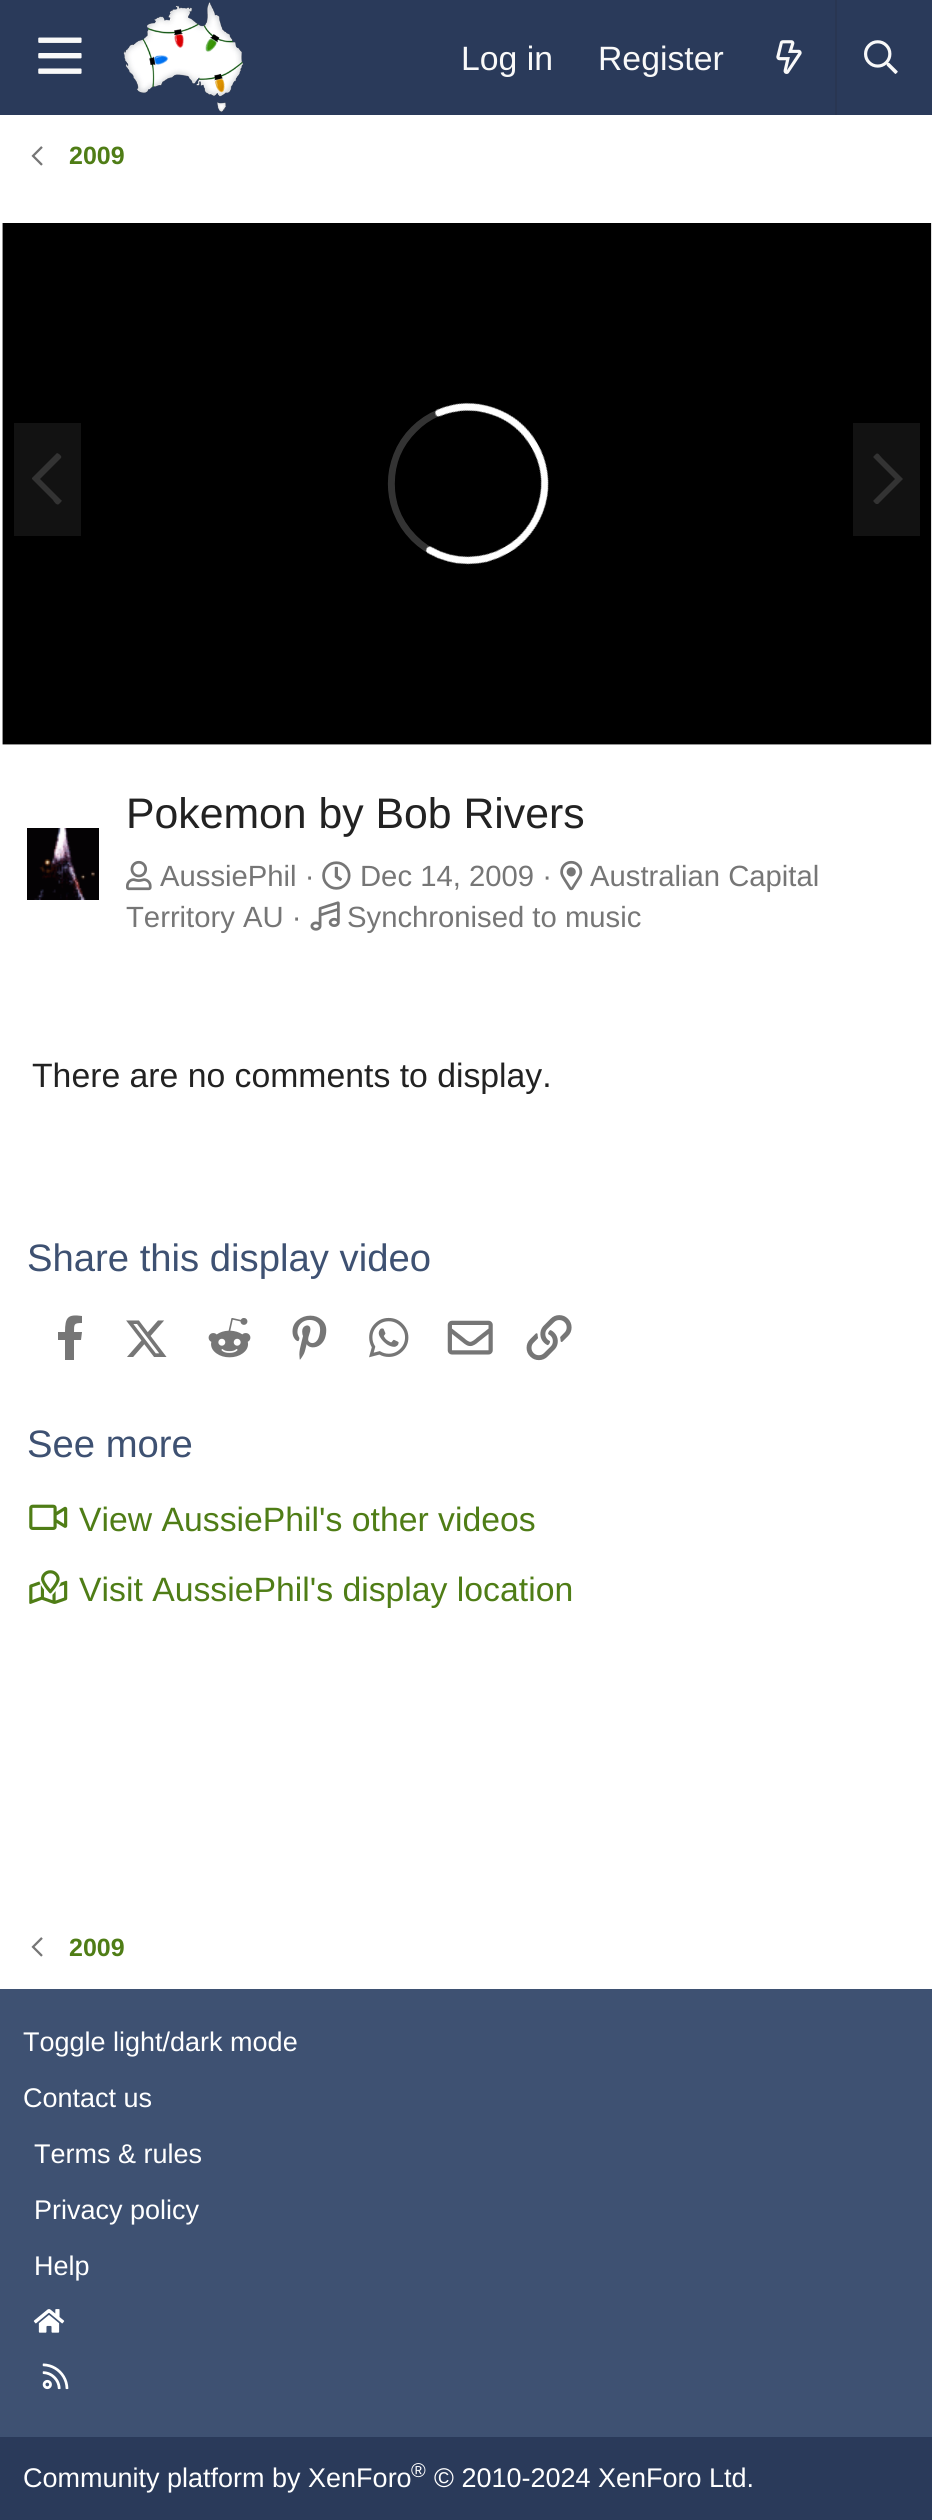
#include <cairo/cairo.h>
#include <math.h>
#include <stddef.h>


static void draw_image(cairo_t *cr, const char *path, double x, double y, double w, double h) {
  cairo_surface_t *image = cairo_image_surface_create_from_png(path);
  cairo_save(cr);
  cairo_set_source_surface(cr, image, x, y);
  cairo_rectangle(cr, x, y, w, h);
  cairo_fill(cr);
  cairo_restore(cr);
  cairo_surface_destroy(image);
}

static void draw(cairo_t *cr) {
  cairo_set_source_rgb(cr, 1, 1, 1);
  cairo_paint(cr);
  cairo_set_source_rgb(cr, 42 / 255.0, 58 / 255.0, 90 / 255.0);
  cairo_rectangle(cr, 0, 0, 932, 115);
  cairo_fill(cr);
  draw_image(cr, "images/1.png", 38, 37, 44, 37);
  draw_image(cr, "images/2.png", 123, 2, 121, 110);
  draw_image(cr, "images/3.png", 776, 40, 26, 34);
  cairo_set_source_rgb(cr, 41 / 255.0, 54 / 255.0, 82 / 255.0);
  cairo_rectangle(cr, 835, 0, 2, 115);
  cairo_fill(cr);
  draw_image(cr, "images/4.png", 864, 40, 34, 34);
  draw_image(cr, "images/5.png", 31, 146, 12, 20);
  draw_image(cr, "images/6.png", 2, 223, 930, 522);
  cairo_set_source_rgb(cr, 18 / 255.0, 18 / 255.0, 18 / 255.0);
  cairo_rectangle(cr, 14, 423, 67, 113);
  cairo_fill(cr);
  cairo_set_source_rgb(cr, 51 / 255.0, 51 / 255.0, 51 / 255.0);
  cairo_new_path(cr);
  cairo_move_to(cr, 59, 504);
  cairo_curve_to(cr, 57, 506, 54, 502, 53, 500);
  cairo_line_to(cr, 32, 479);
  cairo_line_to(cr, 32, 478);
  cairo_line_to(cr, 57, 453);
  cairo_line_to(cr, 59, 454);
  cairo_curve_to(cr, 60, 455, 62, 456, 61, 458);
  cairo_line_to(cr, 40, 479);
  cairo_line_to(cr, 61, 500);
  cairo_curve_to(cr, 62, 500, 62, 501, 61, 502);
  cairo_close_path(cr);
  cairo_fill(cr);
  cairo_set_source_rgb(cr, 18 / 255.0, 18 / 255.0, 18 / 255.0);
  cairo_rectangle(cr, 853, 423, 67, 113);
  cairo_fill(cr);
  cairo_set_source_rgb(cr, 51 / 255.0, 51 / 255.0, 51 / 255.0);
  cairo_new_path(cr);
  cairo_move_to(cr, 876, 454);
  cairo_curve_to(cr, 878, 452, 880, 456, 882, 458);
  cairo_line_to(cr, 903, 479);
  cairo_line_to(cr, 902, 480);
  cairo_line_to(cr, 878, 504);
  cairo_line_to(cr, 876, 504);
  cairo_curve_to(cr, 875, 503, 872, 501, 874, 500);
  cairo_line_to(cr, 895, 479);
  cairo_line_to(cr, 874, 458);
  cairo_curve_to(cr, 873, 457, 873, 457, 874, 456);
  cairo_close_path(cr);
  cairo_fill(cr);
  draw_image(cr, "images/7.png", 27, 828, 72, 72);
  draw_image(cr, "images/8.png", 560, 860, 23, 31);
  draw_image(cr, "images/9.png", 126, 860, 26, 31);
  draw_image(cr, "images/10.png", 322, 861, 29, 29);
  draw_image(cr, "images/11.png", 310, 901, 30, 30);
  cairo_set_source_rgb(cr, 118 / 255.0, 118 / 255.0, 118 / 255.0);
  cairo_new_path(cr);
  cairo_move_to(cr, 81, 1340);
  cairo_line_to(cr, 74, 1340);
  cairo_line_to(cr, 74, 1360);
  cairo_line_to(cr, 65, 1360);
  cairo_line_to(cr, 65, 1340);
  cairo_line_to(cr, 58, 1340);
  cairo_line_to(cr, 58, 1332);
  cairo_line_to(cr, 65, 1332);
  cairo_curve_to(cr, 65, 1317, 68, 1314, 82, 1316);
  cairo_line_to(cr, 82, 1323);
  cairo_curve_to(cr, 74, 1323, 74, 1324, 74, 1332);
  cairo_line_to(cr, 82, 1332);
  cairo_close_path(cr);
  cairo_fill(cr);
  draw_image(cr, "images/12.png", 126, 1320, 41, 37);
  draw_image(cr, "images/13.png", 208, 1318, 43, 40);
  draw_image(cr, "images/14.png", 292, 1315, 35, 45);
  draw_image(cr, "images/15.png", 369, 1317, 40, 41);
  draw_image(cr, "images/16.png", 447, 1320, 46, 35);
  draw_image(cr, "images/17.png", 526, 1315, 46, 46);
  draw_image(cr, "images/18.png", 29, 1504, 39, 26);
  draw_image(cr, "images/19.png", 29, 1570, 39, 34);
  draw_image(cr, "images/5.png", 31, 1937, 12, 20);
  cairo_set_source_rgb(cr, 62 / 255.0, 81 / 255.0, 114 / 255.0);
  cairo_rectangle(cr, 0, 1989, 932, 448);
  cairo_fill(cr);
  draw_image(cr, "images/20.png", 33, 2309, 32, 24);
  draw_image(cr, "images/21.png", 42, 2363, 27, 27);
  cairo_set_source_rgb(cr, 42 / 255.0, 58 / 255.0, 90 / 255.0);
  cairo_rectangle(cr, 0, 2437, 932, 83);
  cairo_fill(cr);
  cairo_select_font_face(cr, "Liberation Sans", CAIRO_FONT_SLANT_NORMAL, CAIRO_FONT_WEIGHT_NORMAL);
  cairo_set_font_size(cr, 33.75);
  cairo_set_source_rgb(cr, 249 / 255.0, 249 / 255.0, 249 / 255.0);
  cairo_move_to(cr, 461, 70);
  cairo_show_text(cr, "Log in");
  cairo_move_to(cr, 598, 70);
  cairo_show_text(cr, "Register");
  cairo_select_font_face(cr, "Liberation Sans", CAIRO_FONT_SLANT_NORMAL, CAIRO_FONT_WEIGHT_BOLD);
  cairo_set_font_size(cr, 25);
  cairo_set_source_rgb(cr, 79 / 255.0, 125 / 255.0, 22 / 255.0);
  cairo_move_to(cr, 69, 164);
  cairo_show_text(cr, "2009");
  cairo_select_font_face(cr, "Liberation Sans", CAIRO_FONT_SLANT_NORMAL, CAIRO_FONT_WEIGHT_NORMAL);
  cairo_set_font_size(cr, 42.75);
  cairo_set_source_rgb(cr, 34 / 255.0, 34 / 255.0, 34 / 255.0);
  cairo_move_to(cr, 126, 828);
  cairo_show_text(cr, "Pokemon by Bob Rivers");
  cairo_set_font_size(cr, 29.25);
  cairo_set_source_rgb(cr, 118 / 255.0, 118 / 255.0, 118 / 255.0);
  cairo_move_to(cr, 590, 886);
  cairo_show_text(cr, "Australian Capital");
  cairo_move_to(cr, 126, 927);
  cairo_show_text(cr, "Territory AU ·");
  cairo_move_to(cr, 160, 886);
  cairo_show_text(cr, "AussiePhil ·");
  cairo_move_to(cr, 360, 886);
  cairo_show_text(cr, "Dec 14, 2009 ·");
  cairo_move_to(cr, 347, 927);
  cairo_show_text(cr, "Synchronised to music");
  cairo_set_font_size(cr, 33.75);
  cairo_set_source_rgb(cr, 34 / 255.0, 34 / 255.0, 34 / 255.0);
  cairo_move_to(cr, 32, 1087);
  cairo_show_text(cr, "There are no comments to display.");
  cairo_set_font_size(cr, 38.25);
  cairo_set_source_rgb(cr, 62 / 255.0, 81 / 255.0, 114 / 255.0);
  cairo_move_to(cr, 27, 1271);
  cairo_show_text(cr, "Share this display video");
  cairo_move_to(cr, 27, 1457);
  cairo_show_text(cr, "See more");
  cairo_set_font_size(cr, 33.75);
  cairo_set_source_rgb(cr, 79 / 255.0, 125 / 255.0, 22 / 255.0);
  cairo_move_to(cr, 79, 1531);
  cairo_show_text(cr, "View AussiePhil's other videos");
  cairo_move_to(cr, 79, 1601);
  cairo_show_text(cr, "Visit AussiePhil's display location");
  cairo_select_font_face(cr, "Liberation Sans", CAIRO_FONT_SLANT_NORMAL, CAIRO_FONT_WEIGHT_BOLD);
  cairo_set_font_size(cr, 25);
  cairo_move_to(cr, 69, 1956);
  cairo_show_text(cr, "2009");
  cairo_select_font_face(cr, "Liberation Sans", CAIRO_FONT_SLANT_NORMAL, CAIRO_FONT_WEIGHT_NORMAL);
  cairo_set_font_size(cr, 27);
  cairo_set_source_rgb(cr, 1, 1, 1);
  cairo_move_to(cr, 23, 2051);
  cairo_show_text(cr, "Toggle light/dark mode");
  cairo_move_to(cr, 23, 2107);
  cairo_show_text(cr, "Contact us");
  cairo_move_to(cr, 34, 2163);
  cairo_show_text(cr, "Terms & rules");
  cairo_move_to(cr, 34, 2219);
  cairo_show_text(cr, "Privacy policy");
  cairo_move_to(cr, 34, 2275);
  cairo_show_text(cr, "Help");
  cairo_move_to(cr, 23, 2487);
  cairo_show_text(cr, "Community platform by XenForo");
  cairo_set_font_size(cr, 20);
  cairo_move_to(cr, 411, 2477);
  cairo_show_text(cr, "®");
  cairo_set_font_size(cr, 27);
  cairo_move_to(cr, 434, 2487);
  cairo_show_text(cr, "© 2010-2024 XenForo Ltd.");
}

int main(void) {
  cairo_surface_t *surface = cairo_image_surface_create(CAIRO_FORMAT_RGB24, 932, 2520);
  cairo_t *cr = cairo_create(surface);
  cairo_font_options_t *options = cairo_font_options_create();
  cairo_font_options_set_hint_metrics(options, CAIRO_HINT_METRICS_OFF);
  cairo_font_options_set_hint_style(options, CAIRO_HINT_STYLE_NONE);
  cairo_set_font_options(cr, options);
  cairo_set_miter_limit(cr, 4);
  draw(cr);
  cairo_surface_write_to_png(surface, "out.png");
  cairo_font_options_destroy(options);
  cairo_destroy(cr);
  cairo_surface_destroy(surface);
  return 0;
}
